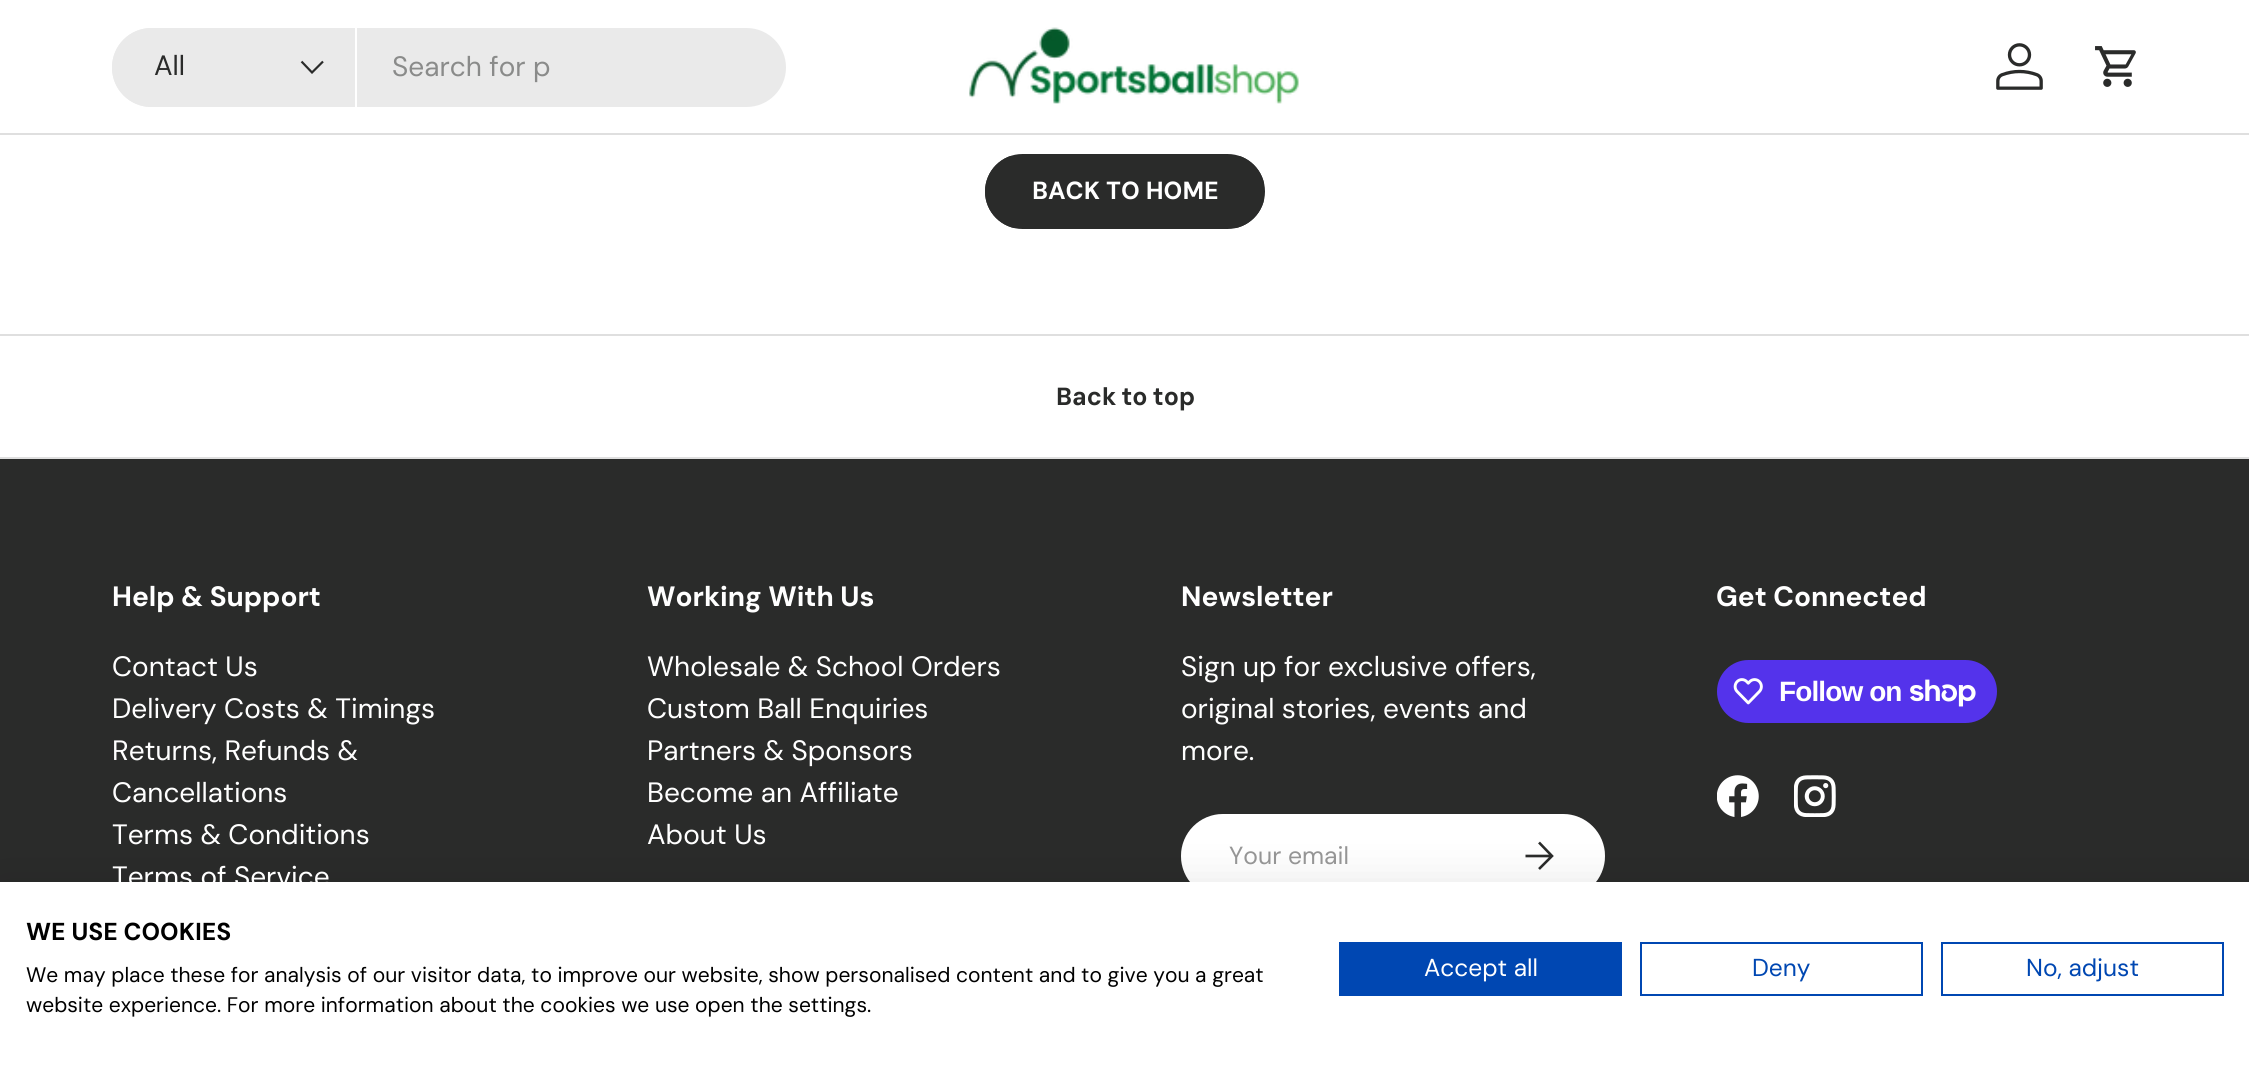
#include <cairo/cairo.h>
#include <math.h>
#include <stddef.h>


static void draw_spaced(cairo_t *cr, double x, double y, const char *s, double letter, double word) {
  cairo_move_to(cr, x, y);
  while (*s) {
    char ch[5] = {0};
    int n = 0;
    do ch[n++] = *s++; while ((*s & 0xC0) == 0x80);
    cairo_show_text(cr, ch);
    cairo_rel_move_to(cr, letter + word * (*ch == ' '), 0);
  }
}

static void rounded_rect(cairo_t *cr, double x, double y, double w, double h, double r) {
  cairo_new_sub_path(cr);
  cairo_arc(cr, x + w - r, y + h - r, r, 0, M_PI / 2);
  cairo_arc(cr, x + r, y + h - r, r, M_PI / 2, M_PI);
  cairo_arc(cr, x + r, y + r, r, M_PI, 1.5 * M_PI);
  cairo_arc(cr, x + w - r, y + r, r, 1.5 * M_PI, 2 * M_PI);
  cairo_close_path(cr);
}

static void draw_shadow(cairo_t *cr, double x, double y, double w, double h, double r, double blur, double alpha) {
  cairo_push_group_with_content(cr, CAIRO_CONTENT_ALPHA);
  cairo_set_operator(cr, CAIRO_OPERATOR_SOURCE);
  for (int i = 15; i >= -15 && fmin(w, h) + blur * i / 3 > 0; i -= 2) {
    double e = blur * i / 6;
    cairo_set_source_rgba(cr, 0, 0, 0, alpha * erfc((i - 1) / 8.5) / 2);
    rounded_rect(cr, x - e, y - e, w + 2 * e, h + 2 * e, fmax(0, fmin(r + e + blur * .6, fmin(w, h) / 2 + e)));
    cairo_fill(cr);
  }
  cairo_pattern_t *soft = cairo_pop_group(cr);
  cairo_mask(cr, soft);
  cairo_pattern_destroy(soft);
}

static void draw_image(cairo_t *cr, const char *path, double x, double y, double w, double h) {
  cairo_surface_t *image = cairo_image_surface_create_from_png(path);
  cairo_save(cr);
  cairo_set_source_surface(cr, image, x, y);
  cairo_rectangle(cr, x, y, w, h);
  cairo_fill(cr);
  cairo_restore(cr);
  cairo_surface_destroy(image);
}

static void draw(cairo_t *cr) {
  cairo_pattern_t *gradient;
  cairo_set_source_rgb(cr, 1, 1, 1);
  cairo_paint(cr);
  cairo_set_source_rgb(cr, 223 / 255.0, 223 / 255.0, 223 / 255.0);
  cairo_rectangle(cr, 0, 133, 2249, 2);
  cairo_fill(cr);
  cairo_set_source_rgb(cr, 234 / 255.0, 234 / 255.0, 234 / 255.0);
  rounded_rect(cr, 112, 28, 674, 79, 39.5);
  cairo_fill(cr);
  cairo_new_path(cr);
  cairo_move_to(cr, 151.5, 28);
  cairo_line_to(cr, 357, 28);
  cairo_line_to(cr, 357, 107);
  cairo_line_to(cr, 151.5, 107);
  cairo_curve_to(cr, 129.5, 107, 112, 89.5, 112, 67.5);
  cairo_curve_to(cr, 112, 45.5, 129.5, 28, 151.5, 28);
  cairo_close_path(cr);
  cairo_fill(cr);
  cairo_set_source_rgb(cr, 1, 1, 1);
  cairo_rectangle(cr, 355, 28, 2, 79);
  cairo_fill(cr);
  cairo_new_path(cr);
  cairo_move_to(cr, 323, 61.5);
  cairo_line_to(cr, 312, 72.5);
  cairo_line_to(cr, 301.5, 61.5);
  cairo_set_source_rgb(cr, 42 / 255.0, 43 / 255.0, 42 / 255.0);
  cairo_set_line_width(cr, 2.2);
  cairo_stroke(cr);
  draw_image(cr, "images/1.png", 969, 27, 330, 77);
  draw_image(cr, "images/2.png", 1996, 43, 47, 47);
  draw_image(cr, "images/3.png", 2095, 46, 41, 41);
  cairo_save(cr);
  rounded_rect(cr, 985, 154, 280, 75, 37.5);
  cairo_clip(cr);
  gradient = cairo_pattern_create_linear(450, 92, 1248, 291);
  cairo_pattern_add_color_stop_rgba(gradient, 0.6, 82 / 255.0, 83 / 255.0, 82 / 255.0, 1);
  cairo_pattern_add_color_stop_rgba(gradient, 0.6, 42 / 255.0, 43 / 255.0, 42 / 255.0, 1);
  cairo_pattern_add_color_stop_rgba(gradient, 1, 42 / 255.0, 43 / 255.0, 42 / 255.0, 1);
  cairo_set_source(cr, gradient);
  cairo_pattern_destroy(gradient);
  cairo_rectangle(cr, 985, 156, 279, 72);
  cairo_fill(cr);
  cairo_restore(cr);
  rounded_rect(cr, 986, 155, 278, 73, 36.5);
  cairo_set_line_width(cr, 2);
  cairo_stroke(cr);
  cairo_set_source_rgb(cr, 223 / 255.0, 223 / 255.0, 223 / 255.0);
  cairo_rectangle(cr, 0, 334, 2249, 2);
  cairo_fill(cr);
  cairo_rectangle(cr, 0, 457, 2249, 2);
  cairo_fill(cr);
  cairo_set_source_rgb(cr, 42 / 255.0, 43 / 255.0, 42 / 255.0);
  cairo_rectangle(cr, 0, 459, 2249, 423);
  cairo_fill(cr);
  cairo_set_source_rgb(cr, 1, 1, 1);
  rounded_rect(cr, 1181, 814, 424, 84, 42);
  cairo_fill(cr);
  rounded_rect(cr, 1182, 815, 422, 82, 41);
  cairo_set_source_rgba(cr, 1, 1, 1, 0.2);
  cairo_stroke(cr);
  cairo_new_path(cr);
  cairo_move_to(cr, 1525.5, 856);
  cairo_line_to(cr, 1551, 856);
  cairo_move_to(cr, 1539, 842.5);
  cairo_line_to(cr, 1552, 856);
  cairo_line_to(cr, 1539, 869);
  cairo_set_source_rgb(cr, 42 / 255.0, 43 / 255.0, 42 / 255.0);
  cairo_set_line_width(cr, 2.6);
  cairo_stroke(cr);
  cairo_set_source_rgb(cr, 84 / 255.0, 51 / 255.0, 235 / 255.0);
  rounded_rect(cr, 1717, 660, 280, 63, 31.5);
  cairo_fill(cr);
  draw_image(cr, "images/4.png", 1733, 678, 30, 27);
  draw_image(cr, "images/5.png", 1910, 679, 66, 28);
  draw_image(cr, "images/6.png", 1717, 775, 42, 42);
  draw_image(cr, "images/7.png", 1794, 775, 42, 42);
  cairo_set_source_rgb(cr, 0, 0, 0);
  draw_shadow(cr, 0, 882, 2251, 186, 0, 21, 0.1);
  cairo_set_source_rgb(cr, 1, 1, 1);
  cairo_rectangle(cr, 0, 882, 2249, 184);
  cairo_fill(cr);
  cairo_set_source_rgb(cr, 0, 71 / 255.0, 178 / 255.0);
  cairo_rectangle(cr, 1339, 942, 283, 54);
  cairo_fill(cr);
  cairo_rectangle(cr, 1641, 943, 281, 52);
  cairo_set_line_width(cr, 2);
  cairo_stroke(cr);
  cairo_rectangle(cr, 1942, 943, 281, 52);
  cairo_stroke(cr);
  cairo_select_font_face(cr, "DM Sans", CAIRO_FONT_SLANT_NORMAL, CAIRO_FONT_WEIGHT_NORMAL);
  cairo_set_font_size(cr, 28);
  cairo_set_source_rgb(cr, 42 / 255.0, 43 / 255.0, 42 / 255.0);
  cairo_move_to(cr, 154, 75);
  cairo_show_text(cr, "All");
  cairo_set_source_rgb(cr, 138 / 255.0, 139 / 255.0, 138 / 255.0);
  cairo_move_to(cr, 392, 76);
  cairo_show_text(cr, "Search for p");
  cairo_select_font_face(cr, "DM Sans", CAIRO_FONT_SLANT_NORMAL, CAIRO_FONT_WEIGHT_BOLD);
  cairo_set_font_size(cr, 24.75);
  cairo_set_source_rgb(cr, 1, 1, 1);
  cairo_move_to(cr, 1032, 199);
  cairo_show_text(cr, "BACK TO HOME");
  cairo_set_source_rgb(cr, 42 / 255.0, 43 / 255.0, 42 / 255.0);
  draw_spaced(cr, 1056, 405, "Back to top", 0, -1);
  cairo_select_font_face(cr, "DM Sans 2", CAIRO_FONT_SLANT_NORMAL, CAIRO_FONT_WEIGHT_BOLD);
  cairo_set_font_size(cr, 28);
  cairo_set_source_rgb(cr, 1, 1, 1);
  cairo_move_to(cr, 112, 606);
  cairo_show_text(cr, "Help & Support");
  cairo_select_font_face(cr, "DM Sans", CAIRO_FONT_SLANT_NORMAL, CAIRO_FONT_WEIGHT_NORMAL);
  cairo_move_to(cr, 112, 676);
  cairo_show_text(cr, "Contact Us");
  cairo_move_to(cr, 112, 718);
  cairo_show_text(cr, "Delivery Costs & Timings");
  cairo_move_to(cr, 112, 760);
  cairo_show_text(cr, "Returns, Refunds &");
  cairo_move_to(cr, 112, 802);
  cairo_show_text(cr, "Cancellations");
  cairo_move_to(cr, 112, 844);
  cairo_show_text(cr, "Terms & Conditions");
  cairo_move_to(cr, 112, 886);
  cairo_show_text(cr, "Terms of Service");
  cairo_select_font_face(cr, "DM Sans 2", CAIRO_FONT_SLANT_NORMAL, CAIRO_FONT_WEIGHT_BOLD);
  cairo_move_to(cr, 647, 606);
  cairo_show_text(cr, "Working With Us");
  cairo_select_font_face(cr, "DM Sans", CAIRO_FONT_SLANT_NORMAL, CAIRO_FONT_WEIGHT_NORMAL);
  cairo_move_to(cr, 647, 676);
  cairo_show_text(cr, "Wholesale & School Orders");
  cairo_move_to(cr, 647, 718);
  cairo_show_text(cr, "Custom Ball Enquiries");
  cairo_move_to(cr, 647, 760);
  cairo_show_text(cr, "Partners & Sponsors");
  cairo_move_to(cr, 647, 802);
  cairo_show_text(cr, "Become an Affiliate");
  cairo_move_to(cr, 647, 844);
  cairo_show_text(cr, "About Us");
  cairo_select_font_face(cr, "DM Sans 2", CAIRO_FONT_SLANT_NORMAL, CAIRO_FONT_WEIGHT_BOLD);
  cairo_move_to(cr, 1181, 606);
  cairo_show_text(cr, "Newsletter");
  cairo_select_font_face(cr, "DM Sans", CAIRO_FONT_SLANT_NORMAL, CAIRO_FONT_WEIGHT_NORMAL);
  cairo_move_to(cr, 1181, 676);
  cairo_show_text(cr, "Sign up for exclusive offers,");
  cairo_move_to(cr, 1181, 718);
  cairo_show_text(cr, "original stories, events and");
  cairo_move_to(cr, 1181, 760);
  cairo_show_text(cr, "more.");
  cairo_select_font_face(cr, "DM Sans 2", CAIRO_FONT_SLANT_NORMAL, CAIRO_FONT_WEIGHT_NORMAL);
  cairo_set_font_size(cr, 24.75);
  cairo_set_source_rgb(cr, 149 / 255.0, 149 / 255.0, 149 / 255.0);
  cairo_move_to(cr, 1229, 864);
  cairo_show_text(cr, "Your email");
  cairo_select_font_face(cr, "DM Sans 2", CAIRO_FONT_SLANT_NORMAL, CAIRO_FONT_WEIGHT_BOLD);
  cairo_set_font_size(cr, 28);
  cairo_set_source_rgb(cr, 1, 1, 1);
  cairo_move_to(cr, 1716, 606);
  cairo_show_text(cr, "Get Connected");
  cairo_select_font_face(cr, "Liberation Sans", CAIRO_FONT_SLANT_NORMAL, CAIRO_FONT_WEIGHT_BOLD);
  draw_spaced(cr, 1779, 701, "Follow on", -0.9, 0);
  cairo_select_font_face(cr, "DM Sans", CAIRO_FONT_SLANT_NORMAL, CAIRO_FONT_WEIGHT_BOLD);
  cairo_set_font_size(cr, 24.5);
  cairo_set_source_rgb(cr, 0, 0, 0);
  cairo_move_to(cr, 26, 940);
  cairo_show_text(cr, "WE USE COOKIES");
  cairo_select_font_face(cr, "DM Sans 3", CAIRO_FONT_SLANT_NORMAL, CAIRO_FONT_WEIGHT_NORMAL);
  cairo_set_font_size(cr, 21);
  cairo_move_to(cr, 26, 982);
  cairo_show_text(cr, "We may place these for analysis of our visitor data, to improve our website, show personalised content and to give you a great");
  cairo_move_to(cr, 26, 1012);
  cairo_show_text(cr, "website experience. For more information about the cookies we use open the settings.");
  cairo_select_font_face(cr, "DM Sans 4", CAIRO_FONT_SLANT_NORMAL, CAIRO_FONT_WEIGHT_NORMAL);
  cairo_set_font_size(cr, 24.5);
  cairo_set_source_rgb(cr, 1, 1, 1);
  cairo_move_to(cr, 1424, 976);
  cairo_show_text(cr, "Accept all");
  cairo_set_source_rgb(cr, 0, 71 / 255.0, 178 / 255.0);
  cairo_move_to(cr, 1752, 976);
  cairo_show_text(cr, "Deny");
  cairo_move_to(cr, 2026, 976);
  cairo_show_text(cr, "No, adjust");
}

int main(void) {
  cairo_surface_t *surface = cairo_image_surface_create(CAIRO_FORMAT_RGB24, 2249, 1066);
  cairo_t *cr = cairo_create(surface);
  cairo_font_options_t *options = cairo_font_options_create();
  cairo_font_options_set_hint_metrics(options, CAIRO_HINT_METRICS_OFF);
  cairo_font_options_set_hint_style(options, CAIRO_HINT_STYLE_NONE);
  cairo_set_font_options(cr, options);
  cairo_set_miter_limit(cr, 4);
  draw(cr);
  cairo_surface_write_to_png(surface, "out.png");
  cairo_font_options_destroy(options);
  cairo_destroy(cr);
  cairo_surface_destroy(surface);
  return 0;
}
